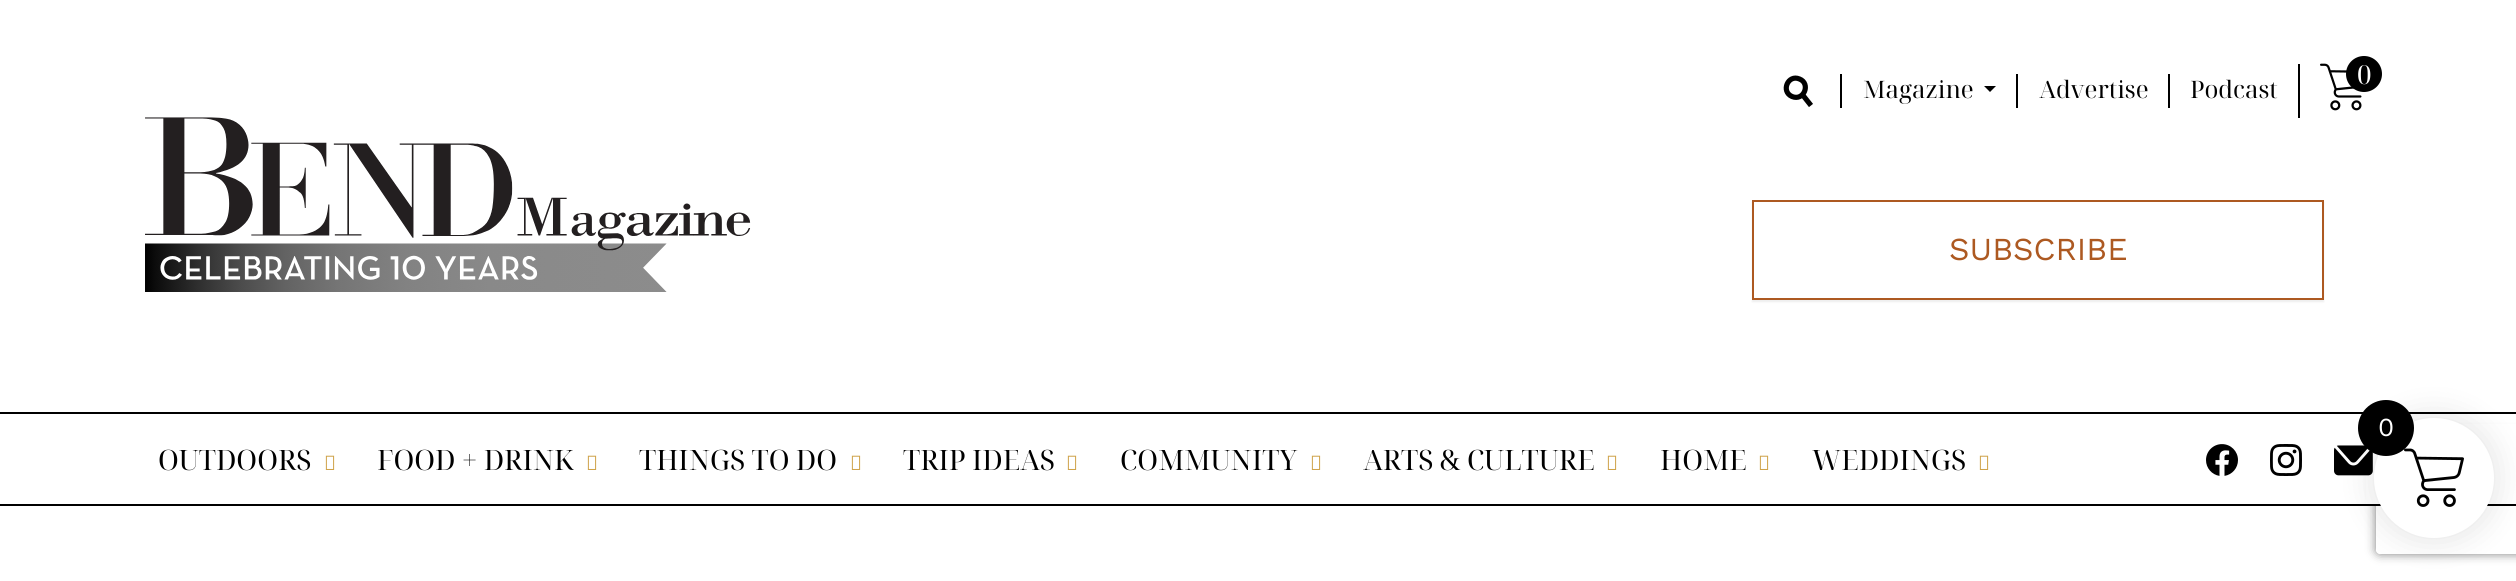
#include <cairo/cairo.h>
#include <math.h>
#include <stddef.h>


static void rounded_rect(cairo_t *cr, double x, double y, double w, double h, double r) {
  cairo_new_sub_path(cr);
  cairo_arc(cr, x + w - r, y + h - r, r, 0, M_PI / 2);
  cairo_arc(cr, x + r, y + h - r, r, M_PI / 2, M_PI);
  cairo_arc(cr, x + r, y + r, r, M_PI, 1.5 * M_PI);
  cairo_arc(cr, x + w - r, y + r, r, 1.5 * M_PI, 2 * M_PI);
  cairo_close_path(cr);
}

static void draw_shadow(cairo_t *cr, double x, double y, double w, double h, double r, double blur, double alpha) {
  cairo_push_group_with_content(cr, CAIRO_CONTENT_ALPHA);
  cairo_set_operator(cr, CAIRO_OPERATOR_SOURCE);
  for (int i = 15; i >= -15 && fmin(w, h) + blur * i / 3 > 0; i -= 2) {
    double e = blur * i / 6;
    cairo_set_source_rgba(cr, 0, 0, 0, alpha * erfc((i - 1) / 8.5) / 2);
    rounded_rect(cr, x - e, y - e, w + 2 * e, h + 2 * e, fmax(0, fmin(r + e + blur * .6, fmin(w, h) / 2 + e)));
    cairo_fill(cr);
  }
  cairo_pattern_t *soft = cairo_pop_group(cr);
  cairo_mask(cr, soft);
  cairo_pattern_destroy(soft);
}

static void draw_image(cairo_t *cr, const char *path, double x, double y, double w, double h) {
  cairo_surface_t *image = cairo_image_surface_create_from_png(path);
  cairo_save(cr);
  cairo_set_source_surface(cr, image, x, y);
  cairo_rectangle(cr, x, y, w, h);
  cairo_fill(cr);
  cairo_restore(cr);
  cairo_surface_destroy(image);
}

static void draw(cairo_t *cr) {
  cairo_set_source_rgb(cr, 1, 1, 1);
  cairo_paint(cr);
  draw_image(cr, "images/1.png", 145, 117, 606, 175);
  cairo_new_path(cr);
  cairo_move_to(cr, 1799.5, 79);
  cairo_curve_to(cr, 1811, 83.5, 1804, 101.5, 1792, 96.5);
  cairo_curve_to(cr, 1780.5, 91.5, 1788, 74, 1799.5, 79);
  cairo_close_path(cr);
  cairo_move_to(cr, 1803.5, 96);
  cairo_line_to(cr, 1811, 105.5);
  cairo_set_source_rgb(cr, 0, 0, 0);
  cairo_set_line_width(cr, 5.2);
  cairo_stroke(cr);
  cairo_rectangle(cr, 1840, 74, 2, 34);
  cairo_fill(cr);
  cairo_new_path(cr);
  cairo_move_to(cr, 1984, 86);
  cairo_line_to(cr, 1996, 86);
  cairo_line_to(cr, 1990, 92);
  cairo_close_path(cr);
  cairo_fill(cr);
  cairo_rectangle(cr, 2016, 74, 2, 34);
  cairo_fill(cr);
  cairo_rectangle(cr, 2168, 74, 2, 34);
  cairo_fill(cr);
  cairo_rectangle(cr, 2298, 64, 2, 54);
  cairo_fill(cr);
  draw_image(cr, "images/2.png", 2320, 63, 42, 48);
  cairo_arc(cr, 2364, 74, 18, 0, 2 * M_PI);
  cairo_fill(cr);
  cairo_save(cr);
  cairo_set_fill_rule(cr, CAIRO_FILL_RULE_EVEN_ODD);
  cairo_new_path(cr);
  cairo_move_to(cr, 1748, 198);
  cairo_line_to(cr, 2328, 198);
  cairo_line_to(cr, 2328, 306);
  cairo_line_to(cr, 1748, 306);
  cairo_close_path(cr);
  cairo_move_to(cr, 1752, 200);
  cairo_line_to(cr, 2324, 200);
  cairo_line_to(cr, 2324, 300);
  cairo_line_to(cr, 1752, 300);
  cairo_close_path(cr);
  cairo_clip(cr);
  cairo_set_source_rgb(cr, 0, 0, 0);
  draw_shadow(cr, 1752, 202, 572, 100, 0, 1, 0.07);
  cairo_restore(cr);
  cairo_rectangle(cr, 1753, 201, 570, 98);
  cairo_set_source_rgb(cr, 173 / 255.0, 89 / 255.0, 33 / 255.0);
  cairo_set_line_width(cr, 2);
  cairo_stroke(cr);
  cairo_save(cr);
  cairo_set_fill_rule(cr, CAIRO_FILL_RULE_EVEN_ODD);
  cairo_new_path(cr);
  cairo_move_to(cr, 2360, 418);
  cairo_line_to(cr, 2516, 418);
  cairo_line_to(cr, 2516, 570);
  cairo_line_to(cr, 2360, 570);
  cairo_close_path(cr);
  cairo_move_to(cr, 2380, 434);
  cairo_line_to(cr, 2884, 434);
  cairo_curve_to(cr, 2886, 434, 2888, 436, 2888, 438);
  cairo_line_to(cr, 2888, 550);
  cairo_curve_to(cr, 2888, 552, 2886, 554, 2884, 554);
  cairo_line_to(cr, 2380, 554);
  cairo_curve_to(cr, 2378, 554, 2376, 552, 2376, 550);
  cairo_line_to(cr, 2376, 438);
  cairo_curve_to(cr, 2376, 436, 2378, 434, 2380, 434);
  cairo_close_path(cr);
  cairo_clip(cr);
  cairo_set_source_rgb(cr, 128 / 255.0, 128 / 255.0, 128 / 255.0);
  draw_shadow(cr, 2376, 434, 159, 120, 4, 5, 1);
  cairo_restore(cr);
  cairo_set_source_rgb(cr, 1, 1, 1);
  cairo_rectangle(cr, 2366, 424, 150, 80);
  cairo_fill(cr);
  cairo_set_source_rgb(cr, 0, 0, 0);
  cairo_rectangle(cr, 0, 412, 2516, 2);
  cairo_fill(cr);
  cairo_rectangle(cr, 0, 504, 2516, 2);
  cairo_fill(cr);
  draw_image(cr, "images/3.png", 325, 455, 10, 15);
  draw_image(cr, "images/3.png", 587, 455, 10, 15);
  draw_image(cr, "images/3.png", 851, 455, 10, 15);
  draw_image(cr, "images/3.png", 1067, 455, 10, 15);
  draw_image(cr, "images/3.png", 1311, 455, 10, 15);
  draw_image(cr, "images/3.png", 1607, 455, 10, 15);
  draw_image(cr, "images/3.png", 1759, 455, 10, 15);
  draw_image(cr, "images/3.png", 1979, 455, 10, 15);
  draw_image(cr, "images/4.png", 2206, 444, 32, 32);
  draw_image(cr, "images/5.png", 2270, 444, 32, 32);
  draw_image(cr, "images/6.png", 2334, 445, 39, 31);
  cairo_set_source_rgb(cr, 0, 0, 0);
  draw_shadow(cr, 2370, 414, 128, 128, 64, 15, 0.1);
  cairo_set_source_rgb(cr, 1, 1, 1);
  cairo_arc(cr, 2434, 478, 60, 0, 2 * M_PI);
  cairo_fill(cr);
  draw_image(cr, "images/7.png", 2404, 448, 60, 59);
  cairo_set_source_rgb(cr, 0, 0, 0);
  cairo_arc(cr, 2386, 428, 28, 0, 2 * M_PI);
  cairo_fill(cr);
  cairo_select_font_face(cr, "Noto Serif Display", CAIRO_FONT_SLANT_NORMAL, CAIRO_FONT_WEIGHT_NORMAL);
  cairo_set_font_size(cr, 24);
  cairo_move_to(cr, 1863, 98);
  cairo_show_text(cr, "Magazine");
  cairo_move_to(cr, 2039, 98);
  cairo_show_text(cr, "Advertise");
  cairo_move_to(cr, 2190, 98);
  cairo_show_text(cr, "Podcast");
  cairo_set_font_size(cr, 26);
  cairo_set_source_rgb(cr, 1, 1, 1);
  cairo_move_to(cr, 2357, 84);
  cairo_show_text(cr, "0");
  cairo_select_font_face(cr, "Work Sans", CAIRO_FONT_SLANT_NORMAL, CAIRO_FONT_WEIGHT_NORMAL);
  cairo_set_font_size(cr, 32);
  cairo_set_source_rgb(cr, 173 / 255.0, 89 / 255.0, 33 / 255.0);
  cairo_move_to(cr, 1949, 260);
  cairo_show_text(cr, "SUBSCRIBE");
  cairo_select_font_face(cr, "Noto Serif Display", CAIRO_FONT_SLANT_NORMAL, CAIRO_FONT_WEIGHT_NORMAL);
  cairo_set_font_size(cr, 28);
  cairo_set_source_rgb(cr, 0, 0, 0);
  cairo_move_to(cr, 158, 470);
  cairo_show_text(cr, "OUTDOORS");
  cairo_move_to(cr, 377, 470);
  cairo_show_text(cr, "FOOD + DRINK");
  cairo_move_to(cr, 639, 470);
  cairo_show_text(cr, "THINGS TO DO");
  cairo_move_to(cr, 903, 470);
  cairo_show_text(cr, "TRIP IDEAS");
  cairo_move_to(cr, 1120, 470);
  cairo_show_text(cr, "COMMUNITY");
  cairo_move_to(cr, 1363, 470);
  cairo_show_text(cr, "ARTS & CULTURE");
  cairo_move_to(cr, 1660, 470);
  cairo_show_text(cr, "HOME");
  cairo_move_to(cr, 1812, 470);
  cairo_show_text(cr, "WEDDINGS");
  cairo_select_font_face(cr, "Work Sans", CAIRO_FONT_SLANT_NORMAL, CAIRO_FONT_WEIGHT_NORMAL);
  cairo_set_font_size(cr, 26);
  cairo_set_source_rgb(cr, 1, 1, 1);
  cairo_move_to(cr, 2378, 436);
  cairo_show_text(cr, "0");
}

int main(void) {
  cairo_surface_t *surface = cairo_image_surface_create(CAIRO_FORMAT_RGB24, 2516, 581);
  cairo_t *cr = cairo_create(surface);
  cairo_font_options_t *options = cairo_font_options_create();
  cairo_font_options_set_hint_metrics(options, CAIRO_HINT_METRICS_OFF);
  cairo_font_options_set_hint_style(options, CAIRO_HINT_STYLE_NONE);
  cairo_set_font_options(cr, options);
  cairo_set_miter_limit(cr, 4);
  draw(cr);
  cairo_surface_write_to_png(surface, "out.png");
  cairo_font_options_destroy(options);
  cairo_destroy(cr);
  cairo_surface_destroy(surface);
  return 0;
}
